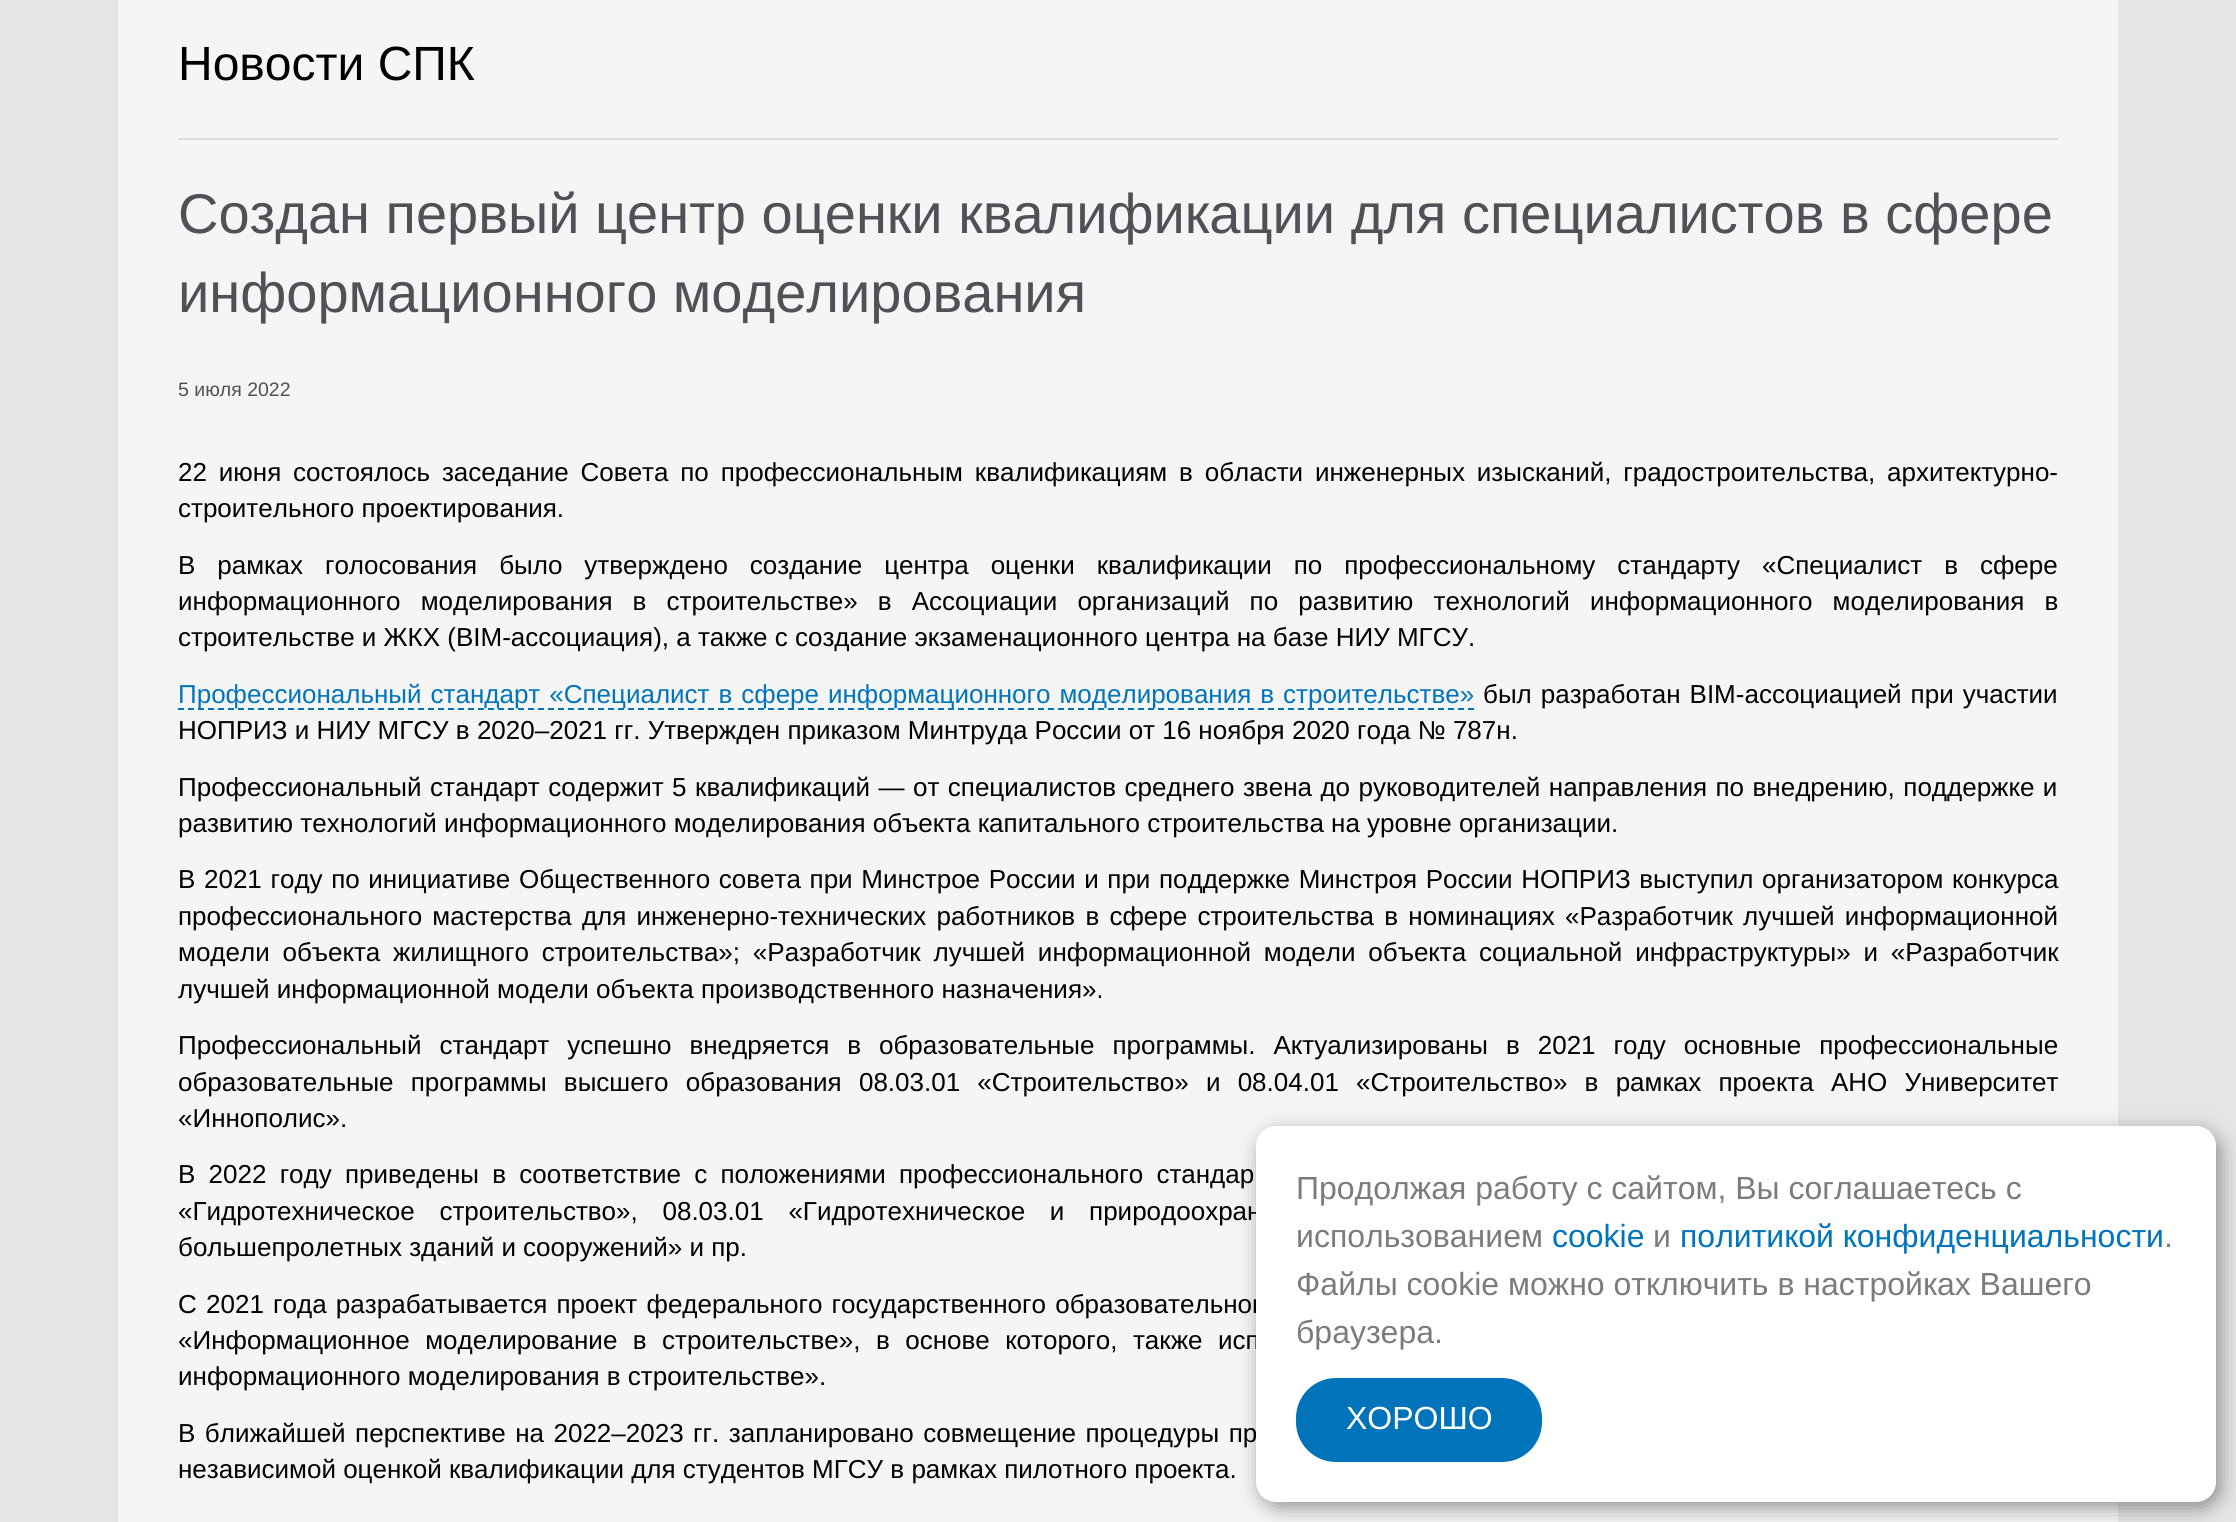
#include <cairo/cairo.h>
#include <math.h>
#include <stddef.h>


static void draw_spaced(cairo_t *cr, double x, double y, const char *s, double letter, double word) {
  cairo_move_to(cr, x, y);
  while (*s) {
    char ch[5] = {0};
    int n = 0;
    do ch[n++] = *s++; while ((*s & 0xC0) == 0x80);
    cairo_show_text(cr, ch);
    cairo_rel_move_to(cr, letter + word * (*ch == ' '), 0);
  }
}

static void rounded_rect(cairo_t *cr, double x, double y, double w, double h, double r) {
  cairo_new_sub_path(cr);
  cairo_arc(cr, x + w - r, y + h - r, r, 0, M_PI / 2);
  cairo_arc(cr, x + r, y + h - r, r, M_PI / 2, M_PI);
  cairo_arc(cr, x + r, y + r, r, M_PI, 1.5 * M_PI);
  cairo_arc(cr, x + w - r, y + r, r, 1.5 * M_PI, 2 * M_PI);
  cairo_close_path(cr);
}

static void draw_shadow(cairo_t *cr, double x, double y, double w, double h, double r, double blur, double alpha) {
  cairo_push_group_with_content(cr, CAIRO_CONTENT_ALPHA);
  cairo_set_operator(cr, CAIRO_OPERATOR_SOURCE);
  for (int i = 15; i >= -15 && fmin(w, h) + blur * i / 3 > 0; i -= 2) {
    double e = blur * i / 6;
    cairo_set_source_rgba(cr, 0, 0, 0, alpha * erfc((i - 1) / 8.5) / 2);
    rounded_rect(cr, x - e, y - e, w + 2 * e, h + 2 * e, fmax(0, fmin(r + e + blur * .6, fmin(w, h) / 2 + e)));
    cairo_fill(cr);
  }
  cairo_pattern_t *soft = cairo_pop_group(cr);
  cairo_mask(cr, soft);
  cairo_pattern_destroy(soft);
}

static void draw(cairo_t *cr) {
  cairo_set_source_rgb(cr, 229 / 255.0, 229 / 255.0, 229 / 255.0);
  cairo_paint(cr);
  cairo_set_source_rgb(cr, 245 / 255.0, 245 / 255.0, 245 / 255.0);
  cairo_rectangle(cr, 118, 0, 2000, 1522);
  cairo_fill(cr);
  cairo_set_source_rgb(cr, 220 / 255.0, 220 / 255.0, 220 / 255.0);
  cairo_rectangle(cr, 178, 138, 1880, 2);
  cairo_fill(cr);
  cairo_new_path(cr);
  cairo_move_to(cr, 178, 709);
  cairo_line_to(cr, 1474, 709);
  cairo_set_source_rgb(cr, 0, 116 / 255.0, 188 / 255.0);
  cairo_set_dash(cr, (double[]){6, 4}, 2, 0);
  cairo_stroke(cr);
  cairo_set_source_rgb(cr, 0, 0, 0);
  draw_shadow(cr, 1260, 1132, 960, 376, 20, 10, 0.4);
  cairo_select_font_face(cr, "Liberation Sans", CAIRO_FONT_SLANT_NORMAL, CAIRO_FONT_WEIGHT_NORMAL);
  cairo_set_font_size(cr, 48);
  cairo_set_source_rgb(cr, 0, 0, 0);
  cairo_move_to(cr, 178, 80);
  cairo_show_text(cr, "Новости СПК");
  cairo_set_font_size(cr, 56);
  cairo_set_source_rgb(cr, 79 / 255.0, 81 / 255.0, 86 / 255.0);
  cairo_move_to(cr, 178, 233);
  cairo_show_text(cr, "Создан первый центр оценки квалификации для специалистов в сфере");
  cairo_move_to(cr, 178, 312);
  cairo_show_text(cr, "информационного моделирования");
  cairo_set_font_size(cr, 19.5);
  cairo_move_to(cr, 178, 396);
  cairo_show_text(cr, "5 июля 2022");
  cairo_set_font_size(cr, 26);
  cairo_set_source_rgb(cr, 0, 0, 0);
  draw_spaced(cr, 178, 481, "22 июня состоялось заседание Совета по профессиональным квалификациям в области инженерных изысканий, градостроительства, архитектурно-", 0, 4.6);
  cairo_move_to(cr, 178, 517);
  cairo_show_text(cr, "строительного проектирования.");
  draw_spaced(cr, 178, 574, "В рамках голосования было утверждено создание центра оценки квалификации по профессиональному стандарту «Специалист в сфере", 0, 14.75);
  draw_spaced(cr, 178, 610, "информационного моделирования в строительстве» в Ассоциации организаций по развитию технологий информационного моделирования в", 0, 12.9);
  cairo_move_to(cr, 178, 646);
  cairo_show_text(cr, "строительстве и ЖКХ (BIM-ассоциация), а также с создание экзаменационного центра на базе НИУ МГСУ.");
  cairo_set_source_rgb(cr, 0, 116 / 255.0, 188 / 255.0);
  draw_spaced(cr, 178, 703, "Профессиональный стандарт «Специалист в сфере информационного моделирования в строительстве»", 0, 1.75);
  cairo_set_source_rgb(cr, 0, 0, 0);
  draw_spaced(cr, 1483, 703, "был разработан BIM-ассоциацией при участии", 0, 1.75);
  cairo_move_to(cr, 178, 739);
  cairo_show_text(cr, "НОПРИЗ и НИУ МГСУ в 2020–2021 гг. Утвержден приказом Минтруда России от 16 ноября 2020 года № 787н.");
  draw_spaced(cr, 178, 796, "Профессиональный стандарт содержит 5 квалификаций — от специалистов среднего звена до руководителей направления по внедрению, поддержке и", 0, 1.25);
  cairo_move_to(cr, 178, 832);
  cairo_show_text(cr, "развитию технологий информационного моделирования объекта капитального строительства на уровне организации.");
  draw_spaced(cr, 178, 888, "В 2021 году по инициативе Общественного совета при Минстрое России и при поддержке Минстроя России НОПРИЗ выступил организатором конкурса", 0, 1.4);
  draw_spaced(cr, 178, 925, "профессионального мастерства для инженерно-технических работников в сфере строительства в номинациях «Разработчик лучшей информационной", 0, 3);
  draw_spaced(cr, 178, 961, "модели объекта жилищного строительства»; «Разработчик лучшей информационной модели объекта социальной инфраструктуры» и «Разработчик", 0, 5.6);
  cairo_move_to(cr, 178, 998);
  cairo_show_text(cr, "лучшей информационной модели объекта производственного назначения».");
  draw_spaced(cr, 178, 1054, "Профессиональный стандарт успешно внедряется в образовательные программы. Актуализированы в 2021 году основные профессиональные", 0, 10.75);
  draw_spaced(cr, 178, 1091, "образовательные программы высшего образования 08.03.01 «Строительство» и 08.04.01 «Строительство» в рамках проекта АНО Университет", 0, 10);
  cairo_move_to(cr, 178, 1127);
  cairo_show_text(cr, "«Иннополис».");
  draw_spaced(cr, 178, 1183, "В 2022 году приведены в соответствие с положениями профессионального стандар", 0, 6);
  draw_spaced(cr, 178, 1220, "«Гидротехническое строительство», 08.03.01 «Гидротехническое и природоохран", 0, 17.5);
  cairo_move_to(cr, 178, 1256);
  cairo_show_text(cr, "большепролетных зданий и сооружений» и пр.");
  draw_spaced(cr, 178, 1313, "С 2021 года разрабатывается проект федерального государственного образовательног", 0, 2);
  draw_spaced(cr, 178, 1349, "«Информационное моделирование в строительстве», в основе которого, также исп", 0, 8.25);
  cairo_move_to(cr, 178, 1385);
  cairo_show_text(cr, "информационного моделирования в строительстве».");
  draw_spaced(cr, 178, 1442, "В ближайшей перспективе на 2022–2023 гг. запланировано совмещение процедуры пр", 0, 2.25);
  cairo_move_to(cr, 178, 1478);
  cairo_show_text(cr, "независимой оценкой квалификации для студентов МГСУ в рамках пилотного проекта.");
  cairo_set_source_rgb(cr, 1, 1, 1);
  rounded_rect(cr, 1256, 1126, 960, 376, 20);
  cairo_fill(cr);
  cairo_set_font_size(cr, 32);
  cairo_set_source_rgb(cr, 124 / 255.0, 124 / 255.0, 124 / 255.0);
  cairo_move_to(cr, 1296, 1199);
  cairo_show_text(cr, "Продолжая работу с сайтом, Вы соглашаетесь с");
  cairo_move_to(cr, 1296, 1247);
  cairo_show_text(cr, "использованием");
  cairo_set_source_rgb(cr, 0, 116 / 255.0, 188 / 255.0);
  cairo_move_to(cr, 1552, 1247);
  cairo_show_text(cr, "cookie");
  cairo_set_source_rgb(cr, 124 / 255.0, 124 / 255.0, 124 / 255.0);
  cairo_move_to(cr, 1653, 1247);
  cairo_show_text(cr, "и");
  cairo_set_source_rgb(cr, 0, 116 / 255.0, 188 / 255.0);
  cairo_move_to(cr, 1680, 1247);
  cairo_show_text(cr, "политикой конфиденциальности");
  cairo_set_source_rgb(cr, 124 / 255.0, 124 / 255.0, 124 / 255.0);
  cairo_move_to(cr, 2164, 1247);
  cairo_show_text(cr, ".");
  cairo_move_to(cr, 1296, 1295);
  cairo_show_text(cr, "Файлы cookie можно отключить в настройках Вашего");
  cairo_move_to(cr, 1296, 1343);
  cairo_show_text(cr, "браузера.");
  cairo_set_source_rgb(cr, 0, 116 / 255.0, 187 / 255.0);
  rounded_rect(cr, 1296, 1378, 246, 84, 40);
  cairo_fill(cr);
  cairo_set_source_rgb(cr, 1, 1, 1);
  cairo_move_to(cr, 1346, 1429);
  cairo_show_text(cr, "ХОРОШО");
}

int main(void) {
  cairo_surface_t *surface = cairo_image_surface_create(CAIRO_FORMAT_RGB24, 2236, 1522);
  cairo_t *cr = cairo_create(surface);
  cairo_font_options_t *options = cairo_font_options_create();
  cairo_font_options_set_hint_metrics(options, CAIRO_HINT_METRICS_OFF);
  cairo_font_options_set_hint_style(options, CAIRO_HINT_STYLE_NONE);
  cairo_set_font_options(cr, options);
  cairo_set_miter_limit(cr, 4);
  draw(cr);
  cairo_surface_write_to_png(surface, "out.png");
  cairo_font_options_destroy(options);
  cairo_destroy(cr);
  cairo_surface_destroy(surface);
  return 0;
}
